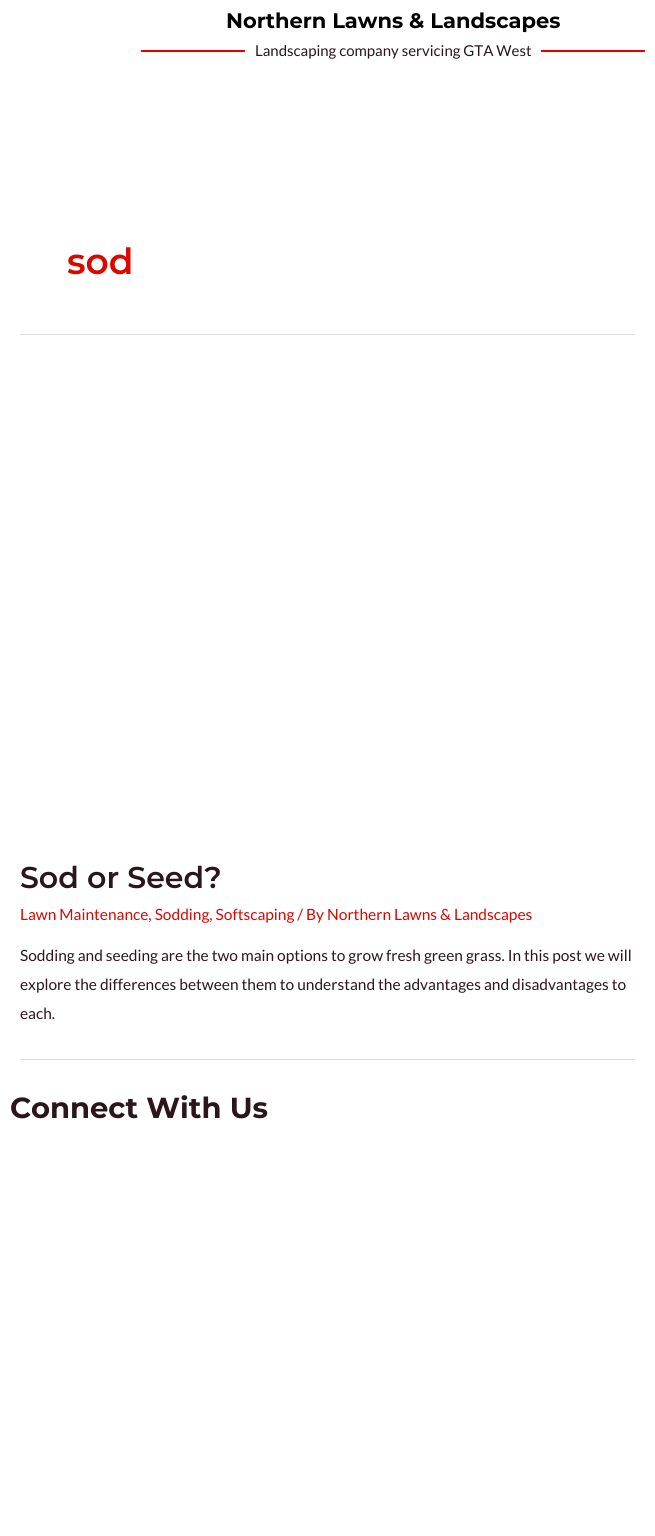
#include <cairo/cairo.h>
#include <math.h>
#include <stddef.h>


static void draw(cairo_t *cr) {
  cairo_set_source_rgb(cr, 1, 1, 1);
  cairo_paint(cr);
  cairo_set_source_rgb(cr, 230 / 255.0, 0, 0);
  cairo_rectangle(cr, 141, 50, 104, 2);
  cairo_fill(cr);
  cairo_rectangle(cr, 541, 50, 104, 2);
  cairo_fill(cr);
  cairo_set_source_rgb(cr, 221 / 255.0, 221 / 255.0, 221 / 255.0);
  cairo_rectangle(cr, 20, 334, 615, 1);
  cairo_fill(cr);
  cairo_rectangle(cr, 20, 1059, 615, 1);
  cairo_fill(cr);
  cairo_select_font_face(cr, "Montserrat", CAIRO_FONT_SLANT_NORMAL, CAIRO_FONT_WEIGHT_BOLD);
  cairo_set_font_size(cr, 21);
  cairo_set_source_rgb(cr, 0, 0, 0);
  cairo_move_to(cr, 226, 28);
  cairo_show_text(cr, "Northern Lawns & Landscapes");
  cairo_select_font_face(cr, "Lato", CAIRO_FONT_SLANT_NORMAL, CAIRO_FONT_WEIGHT_NORMAL);
  cairo_set_font_size(cr, 15);
  cairo_set_source_rgb(cr, 43 / 255.0, 22 / 255.0, 27 / 255.0);
  cairo_move_to(cr, 255, 56);
  cairo_show_text(cr, "Landscaping company servicing GTA West");
  cairo_select_font_face(cr, "Montserrat SemiBold", CAIRO_FONT_SLANT_NORMAL, CAIRO_FONT_WEIGHT_NORMAL);
  cairo_set_font_size(cr, 36);
  cairo_set_source_rgb(cr, 217 / 255.0, 7 / 255.0, 0);
  cairo_move_to(cr, 67, 274);
  cairo_show_text(cr, "sod");
  cairo_set_font_size(cr, 30);
  cairo_set_source_rgb(cr, 43 / 255.0, 22 / 255.0, 27 / 255.0);
  cairo_move_to(cr, 20, 888);
  cairo_show_text(cr, "Sod or Seed?");
  cairo_select_font_face(cr, "Lato", CAIRO_FONT_SLANT_NORMAL, CAIRO_FONT_WEIGHT_NORMAL);
  cairo_set_font_size(cr, 15.5);
  cairo_set_source_rgb(cr, 217 / 255.0, 7 / 255.0, 0);
  cairo_move_to(cr, 20, 920);
  cairo_show_text(cr, "Lawn Maintenance, Sodding, Softscaping / By Northern Lawns & Landscapes");
  cairo_set_source_rgb(cr, 43 / 255.0, 22 / 255.0, 27 / 255.0);
  cairo_move_to(cr, 20, 961);
  cairo_show_text(cr, "Sodding and seeding are the two main options to grow fresh green grass. In this post we will");
  cairo_move_to(cr, 20, 990);
  cairo_show_text(cr, "explore the differences between them to understand the advantages and disadvantages to");
  cairo_move_to(cr, 20, 1019);
  cairo_show_text(cr, "each.");
  cairo_select_font_face(cr, "Montserrat", CAIRO_FONT_SLANT_NORMAL, CAIRO_FONT_WEIGHT_BOLD);
  cairo_set_font_size(cr, 29);
  cairo_move_to(cr, 10, 1118);
  cairo_show_text(cr, "Connect With Us");
}

int main(void) {
  cairo_surface_t *surface = cairo_image_surface_create(CAIRO_FORMAT_RGB24, 655, 1536);
  cairo_t *cr = cairo_create(surface);
  cairo_font_options_t *options = cairo_font_options_create();
  cairo_font_options_set_hint_metrics(options, CAIRO_HINT_METRICS_OFF);
  cairo_font_options_set_hint_style(options, CAIRO_HINT_STYLE_NONE);
  cairo_set_font_options(cr, options);
  cairo_set_miter_limit(cr, 4);
  draw(cr);
  cairo_surface_write_to_png(surface, "out.png");
  cairo_font_options_destroy(options);
  cairo_destroy(cr);
  cairo_surface_destroy(surface);
  return 0;
}
